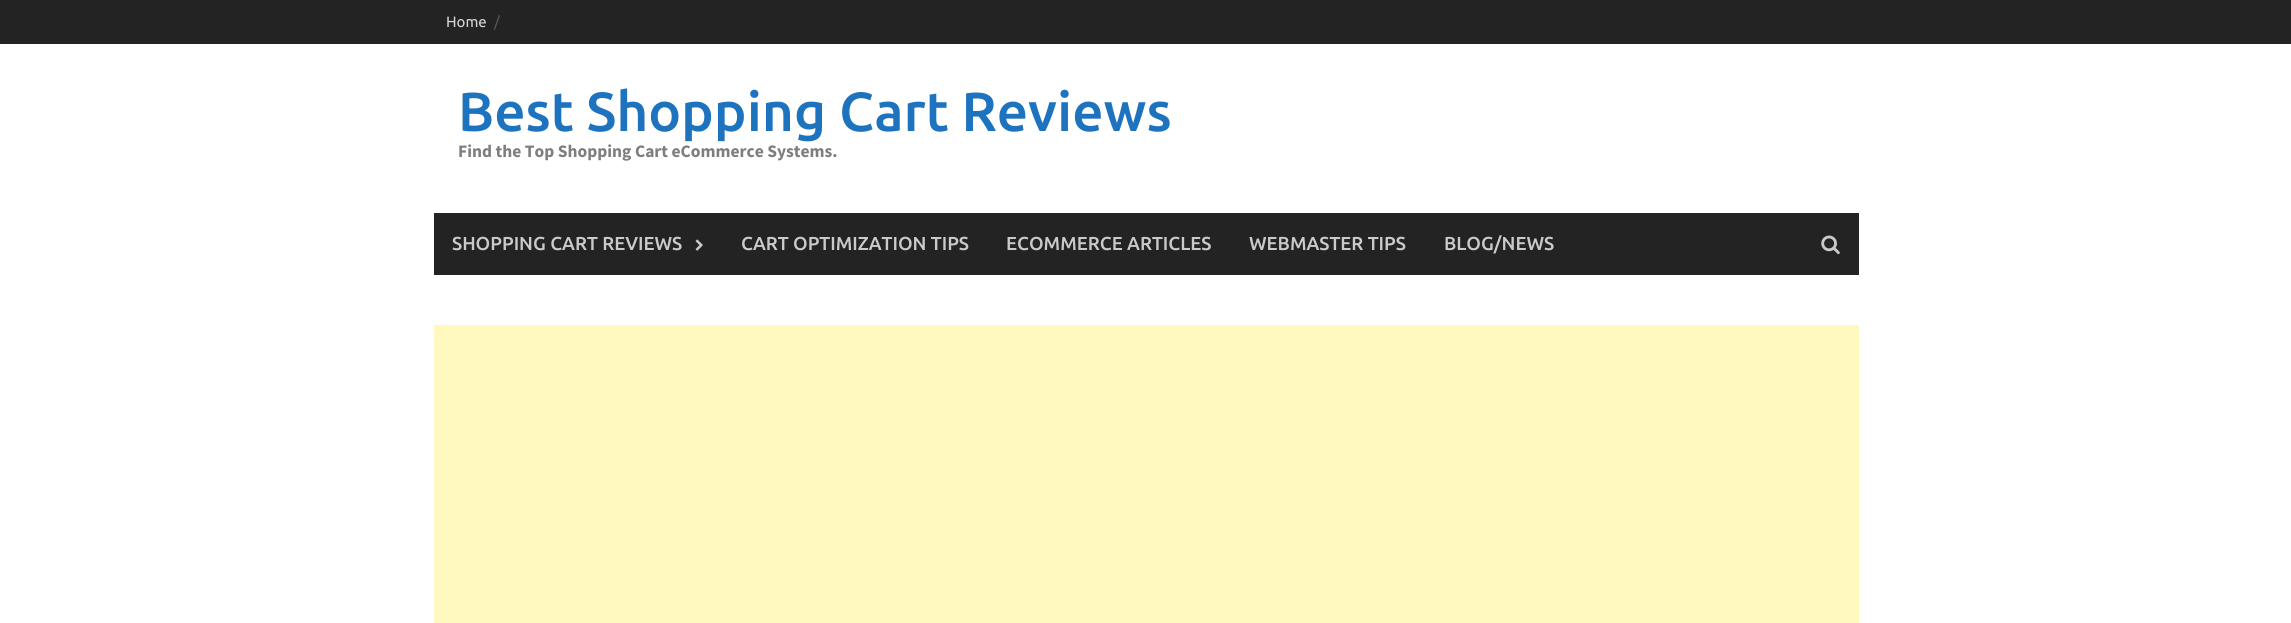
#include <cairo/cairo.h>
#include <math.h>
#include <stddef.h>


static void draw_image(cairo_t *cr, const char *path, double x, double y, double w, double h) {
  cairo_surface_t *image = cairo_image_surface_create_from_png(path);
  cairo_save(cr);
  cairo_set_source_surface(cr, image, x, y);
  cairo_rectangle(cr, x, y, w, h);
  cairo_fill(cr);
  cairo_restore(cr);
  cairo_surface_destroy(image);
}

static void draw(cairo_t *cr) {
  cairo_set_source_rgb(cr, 1, 1, 1);
  cairo_paint(cr);
  cairo_set_source_rgb(cr, 35 / 255.0, 35 / 255.0, 35 / 255.0);
  cairo_rectangle(cr, 0, 0, 2291, 44);
  cairo_fill(cr);
  cairo_rectangle(cr, 434, 213, 1425, 62);
  cairo_fill(cr);
  draw_image(cr, "images/1.png", 695, 239, 8, 12);
  draw_image(cr, "images/2.png", 1821, 235, 19, 20);
  cairo_set_source_rgb(cr, 1, 249 / 255.0, 192 / 255.0);
  cairo_rectangle(cr, 434, 325, 1425, 298);
  cairo_fill(cr);
  cairo_select_font_face(cr, "Ubuntu", CAIRO_FONT_SLANT_NORMAL, CAIRO_FONT_WEIGHT_NORMAL);
  cairo_set_font_size(cr, 15);
  cairo_set_source_rgb(cr, 215 / 255.0, 215 / 255.0, 215 / 255.0);
  cairo_move_to(cr, 446, 27);
  cairo_show_text(cr, "Home");
  cairo_set_source_rgb(cr, 85 / 255.0, 85 / 255.0, 85 / 255.0);
  cairo_move_to(cr, 494, 27);
  cairo_show_text(cr, "/");
  cairo_select_font_face(cr, "Ubuntu Medium", CAIRO_FONT_SLANT_NORMAL, CAIRO_FONT_WEIGHT_NORMAL);
  cairo_set_font_size(cr, 55);
  cairo_set_source_rgb(cr, 30 / 255.0, 115 / 255.0, 190 / 255.0);
  cairo_move_to(cr, 458, 131);
  cairo_show_text(cr, "Best Shopping Cart Reviews");
  cairo_select_font_face(cr, "Source Sans Pro", CAIRO_FONT_SLANT_NORMAL, CAIRO_FONT_WEIGHT_BOLD);
  cairo_set_font_size(cr, 17.5);
  cairo_set_source_rgb(cr, 126 / 255.0, 126 / 255.0, 126 / 255.0);
  cairo_move_to(cr, 458, 157);
  cairo_show_text(cr, "Find the Top Shopping Cart eCommerce Systems.");
  cairo_select_font_face(cr, "Ubuntu Medium", CAIRO_FONT_SLANT_NORMAL, CAIRO_FONT_WEIGHT_NORMAL);
  cairo_set_font_size(cr, 18.75);
  cairo_set_source_rgb(cr, 202 / 255.0, 202 / 255.0, 202 / 255.0);
  cairo_move_to(cr, 452, 250);
  cairo_show_text(cr, "SHOPPING CART REVIEWS");
  cairo_move_to(cr, 741, 250);
  cairo_show_text(cr, "CART OPTIMIZATION TIPS");
  cairo_move_to(cr, 1006, 250);
  cairo_show_text(cr, "ECOMMERCE ARTICLES");
  cairo_move_to(cr, 1249, 250);
  cairo_show_text(cr, "WEBMASTER TIPS");
  cairo_move_to(cr, 1444, 250);
  cairo_show_text(cr, "BLOG/NEWS");
}

int main(void) {
  cairo_surface_t *surface = cairo_image_surface_create(CAIRO_FORMAT_RGB24, 2291, 623);
  cairo_t *cr = cairo_create(surface);
  cairo_font_options_t *options = cairo_font_options_create();
  cairo_font_options_set_hint_metrics(options, CAIRO_HINT_METRICS_OFF);
  cairo_font_options_set_hint_style(options, CAIRO_HINT_STYLE_NONE);
  cairo_set_font_options(cr, options);
  cairo_set_miter_limit(cr, 4);
  draw(cr);
  cairo_surface_write_to_png(surface, "out.png");
  cairo_font_options_destroy(options);
  cairo_destroy(cr);
  cairo_surface_destroy(surface);
  return 0;
}
